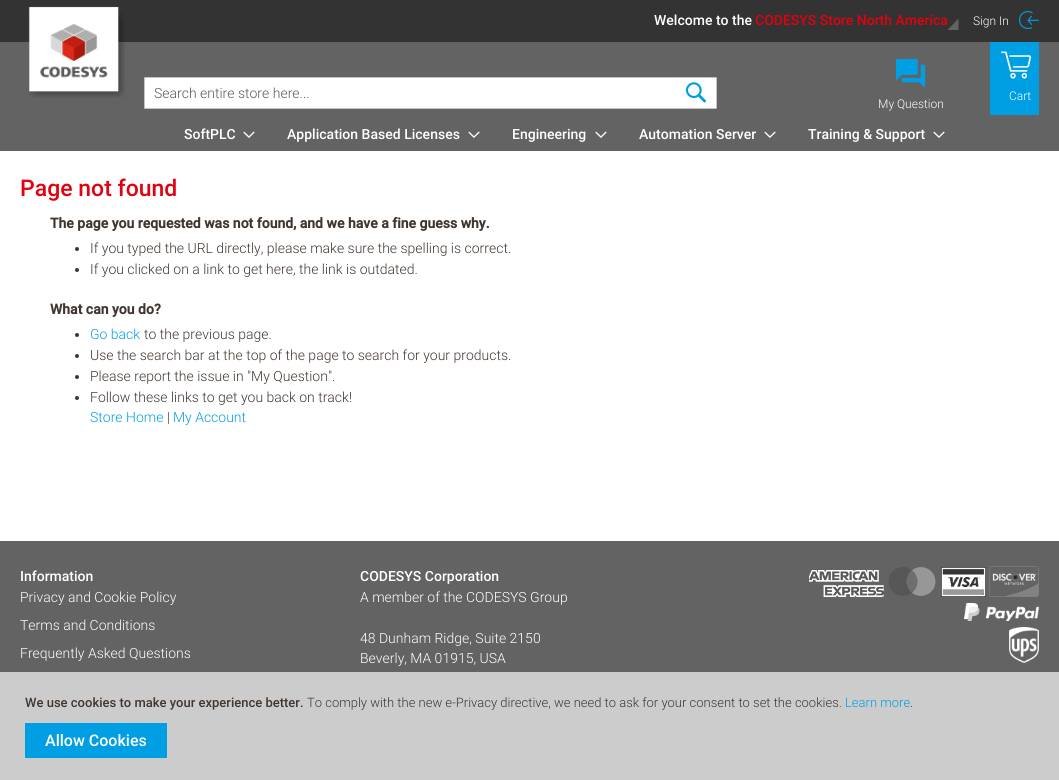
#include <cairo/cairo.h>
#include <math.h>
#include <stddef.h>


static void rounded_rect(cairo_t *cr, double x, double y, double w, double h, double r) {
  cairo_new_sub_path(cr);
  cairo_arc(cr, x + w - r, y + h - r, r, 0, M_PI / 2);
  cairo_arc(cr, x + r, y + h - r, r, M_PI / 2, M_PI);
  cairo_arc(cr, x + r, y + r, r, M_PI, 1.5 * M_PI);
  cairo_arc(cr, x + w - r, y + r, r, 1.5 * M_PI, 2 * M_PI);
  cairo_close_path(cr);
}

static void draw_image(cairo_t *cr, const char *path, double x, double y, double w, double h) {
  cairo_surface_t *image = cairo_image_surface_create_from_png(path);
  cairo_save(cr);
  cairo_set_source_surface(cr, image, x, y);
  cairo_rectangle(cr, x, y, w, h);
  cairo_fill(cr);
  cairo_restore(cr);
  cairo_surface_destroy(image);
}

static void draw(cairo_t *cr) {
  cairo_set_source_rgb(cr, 1, 1, 1);
  cairo_paint(cr);
  cairo_set_source_rgb(cr, 99 / 255.0, 99 / 255.0, 99 / 255.0);
  cairo_rectangle(cr, 0, 42, 1059, 109);
  cairo_fill(cr);
  cairo_set_source_rgb(cr, 51 / 255.0, 51 / 255.0, 51 / 255.0);
  cairo_rectangle(cr, 0, 0, 1059, 42);
  cairo_fill(cr);
  draw_image(cr, "images/1.png", 1019, 11, 20, 18);
  draw_image(cr, "images/2.png", 28, 6, 97, 92);
  cairo_set_source_rgb(cr, 1, 1, 1);
  rounded_rect(cr, 144.5, 77.5, 572, 31, 0.5);
  cairo_fill_preserve(cr);
  cairo_set_source_rgb(cr, 194 / 255.0, 194 / 255.0, 194 / 255.0);
  cairo_set_line_width(cr, 1);
  cairo_stroke(cr);
  draw_image(cr, "images/3.png", 685, 82, 22, 21);
  cairo_set_source_rgb(cr, 0, 158 / 255.0, 227 / 255.0);
  cairo_rectangle(cr, 990, 42, 49, 73);
  cairo_fill(cr);
  draw_image(cr, "images/4.png", 1001, 51, 30, 28);
  draw_image(cr, "images/5.png", 895, 58, 31, 30);
  draw_image(cr, "images/6.png", 243, 131, 12, 7);
  draw_image(cr, "images/6.png", 468, 131, 12, 7);
  draw_image(cr, "images/6.png", 595, 131, 12, 7);
  draw_image(cr, "images/6.png", 764, 131, 12, 7);
  draw_image(cr, "images/6.png", 933, 131, 12, 7);
  cairo_set_source_rgb(cr, 65 / 255.0, 54 / 255.0, 47 / 255.0);
  cairo_arc(cr, 77, 249, 2, 0, 2 * M_PI);
  cairo_fill(cr);
  cairo_arc(cr, 77, 270, 2, 0, 2 * M_PI);
  cairo_fill(cr);
  cairo_arc(cr, 77, 335, 2, 0, 2 * M_PI);
  cairo_fill(cr);
  cairo_arc(cr, 77, 356, 2, 0, 2 * M_PI);
  cairo_fill(cr);
  cairo_arc(cr, 77, 377, 2, 0, 2 * M_PI);
  cairo_fill(cr);
  cairo_arc(cr, 77, 398, 2, 0, 2 * M_PI);
  cairo_fill(cr);
  cairo_set_source_rgb(cr, 99 / 255.0, 99 / 255.0, 99 / 255.0);
  cairo_rectangle(cr, 0, 541, 1059, 131);
  cairo_fill(cr);
  draw_image(cr, "images/7.png", 809, 570, 75, 27);
  draw_image(cr, "images/8.png", 888, 567, 48, 29);
  draw_image(cr, "images/9.png", 941, 567, 45, 30);
  draw_image(cr, "images/10.png", 989, 566, 50, 31);
  draw_image(cr, "images/11.png", 964, 603, 75, 18);
  draw_image(cr, "images/12.png", 1009, 627, 30, 36);
  cairo_set_source_rgb(cr, 204 / 255.0, 204 / 255.0, 204 / 255.0);
  cairo_rectangle(cr, 0, 672, 1059, 108);
  cairo_fill(cr);
  cairo_set_source_rgb(cr, 0, 158 / 255.0, 227 / 255.0);
  cairo_rectangle(cr, 25, 723, 142, 35);
  cairo_fill(cr);
  cairo_select_font_face(cr, "Roboto Medium", CAIRO_FONT_SLANT_NORMAL, CAIRO_FONT_WEIGHT_NORMAL);
  cairo_set_font_size(cr, 14);
  cairo_set_source_rgb(cr, 1, 1, 1);
  cairo_move_to(cr, 654, 25);
  cairo_show_text(cr, "Welcome to the");
  cairo_set_source_rgb(cr, 227 / 255.0, 0, 15 / 255.0);
  cairo_move_to(cr, 755, 25);
  cairo_show_text(cr, "CODESYS Store North America");
  cairo_set_source_rgb(cr, 99 / 255.0, 99 / 255.0, 99 / 255.0);
  cairo_new_path(cr);
  cairo_move_to(cr, 947.5, 30);
  cairo_line_to(cr, 958.5, 18.5);
  cairo_line_to(cr, 958.5, 30);
  cairo_close_path(cr);
  cairo_fill(cr);
  cairo_select_font_face(cr, "Roboto Light", CAIRO_FONT_SLANT_NORMAL, CAIRO_FONT_WEIGHT_NORMAL);
  cairo_set_font_size(cr, 12);
  cairo_set_source_rgb(cr, 1, 1, 1);
  cairo_move_to(cr, 973, 25);
  cairo_show_text(cr, "Sign In");
  cairo_set_font_size(cr, 14);
  cairo_set_source_rgb(cr, 87 / 255.0, 87 / 255.0, 87 / 255.0);
  cairo_move_to(cr, 154, 98);
  cairo_show_text(cr, "Search entire store here...");
  cairo_set_font_size(cr, 12);
  cairo_set_source_rgb(cr, 1, 1, 1);
  cairo_move_to(cr, 1009, 100);
  cairo_show_text(cr, "Cart");
  cairo_move_to(cr, 878, 108);
  cairo_show_text(cr, "My Question");
  cairo_select_font_face(cr, "Roboto Medium", CAIRO_FONT_SLANT_NORMAL, CAIRO_FONT_WEIGHT_NORMAL);
  cairo_set_font_size(cr, 14);
  cairo_move_to(cr, 184, 139);
  cairo_show_text(cr, "SoftPLC");
  cairo_move_to(cr, 287, 139);
  cairo_show_text(cr, "Application Based Licenses");
  cairo_move_to(cr, 512, 139);
  cairo_show_text(cr, "Engineering");
  cairo_move_to(cr, 639, 139);
  cairo_show_text(cr, "Automation Server");
  cairo_move_to(cr, 808, 139);
  cairo_show_text(cr, "Training & Support");
  cairo_set_font_size(cr, 23);
  cairo_set_source_rgb(cr, 227 / 255.0, 0, 15 / 255.0);
  cairo_move_to(cr, 20, 196);
  cairo_show_text(cr, "Page not found");
  cairo_select_font_face(cr, "Roboto", CAIRO_FONT_SLANT_NORMAL, CAIRO_FONT_WEIGHT_BOLD);
  cairo_set_font_size(cr, 14);
  cairo_set_source_rgb(cr, 65 / 255.0, 54 / 255.0, 47 / 255.0);
  cairo_move_to(cr, 50, 228);
  cairo_show_text(cr, "The page you requested was not found, and we have a fine guess why.");
  cairo_select_font_face(cr, "Roboto Light", CAIRO_FONT_SLANT_NORMAL, CAIRO_FONT_WEIGHT_NORMAL);
  cairo_move_to(cr, 90, 253);
  cairo_show_text(cr, "If you typed the URL directly, please make sure the spelling is correct.");
  cairo_move_to(cr, 90, 274);
  cairo_show_text(cr, "If you clicked on a link to get here, the link is outdated.");
  cairo_select_font_face(cr, "Roboto", CAIRO_FONT_SLANT_NORMAL, CAIRO_FONT_WEIGHT_BOLD);
  cairo_move_to(cr, 50, 314);
  cairo_show_text(cr, "What can you do?");
  cairo_select_font_face(cr, "Roboto Light", CAIRO_FONT_SLANT_NORMAL, CAIRO_FONT_WEIGHT_NORMAL);
  cairo_set_source_rgb(cr, 0, 158 / 255.0, 227 / 255.0);
  cairo_move_to(cr, 90, 339);
  cairo_show_text(cr, "Go back");
  cairo_set_source_rgb(cr, 65 / 255.0, 54 / 255.0, 47 / 255.0);
  cairo_move_to(cr, 144, 339);
  cairo_show_text(cr, "to the previous page.");
  cairo_move_to(cr, 90, 360);
  cairo_show_text(cr, "Use the search bar at the top of the page to search for your products.");
  cairo_move_to(cr, 90, 381);
  cairo_show_text(cr, "Please report the issue in \"My Question\".");
  cairo_move_to(cr, 90, 402);
  cairo_show_text(cr, "Follow these links to get you back on track!");
  cairo_set_source_rgb(cr, 0, 158 / 255.0, 227 / 255.0);
  cairo_move_to(cr, 90, 422);
  cairo_show_text(cr, "Store Home");
  cairo_set_source_rgb(cr, 65 / 255.0, 54 / 255.0, 47 / 255.0);
  cairo_move_to(cr, 167, 422);
  cairo_show_text(cr, "|");
  cairo_set_source_rgb(cr, 0, 158 / 255.0, 227 / 255.0);
  cairo_move_to(cr, 173, 422);
  cairo_show_text(cr, "My Account");
  cairo_select_font_face(cr, "Roboto Medium", CAIRO_FONT_SLANT_NORMAL, CAIRO_FONT_WEIGHT_NORMAL);
  cairo_set_source_rgb(cr, 1, 1, 1);
  cairo_move_to(cr, 20, 581);
  cairo_show_text(cr, "Information");
  cairo_select_font_face(cr, "Roboto Light", CAIRO_FONT_SLANT_NORMAL, CAIRO_FONT_WEIGHT_NORMAL);
  cairo_move_to(cr, 20, 602);
  cairo_show_text(cr, "Privacy and Cookie Policy");
  cairo_move_to(cr, 20, 630);
  cairo_show_text(cr, "Terms and Conditions");
  cairo_move_to(cr, 20, 658);
  cairo_show_text(cr, "Frequently Asked Questions");
  cairo_select_font_face(cr, "Roboto Medium", CAIRO_FONT_SLANT_NORMAL, CAIRO_FONT_WEIGHT_NORMAL);
  cairo_move_to(cr, 360, 581);
  cairo_show_text(cr, "CODESYS Corporation");
  cairo_select_font_face(cr, "Roboto Light", CAIRO_FONT_SLANT_NORMAL, CAIRO_FONT_WEIGHT_NORMAL);
  cairo_move_to(cr, 360, 602);
  cairo_show_text(cr, "A member of the CODESYS Group");
  cairo_move_to(cr, 360, 643);
  cairo_show_text(cr, "48 Dunham Ridge, Suite 2150");
  cairo_move_to(cr, 360, 663);
  cairo_show_text(cr, "Beverly, MA 01915, USA");
  cairo_select_font_face(cr, "Roboto Medium", CAIRO_FONT_SLANT_NORMAL, CAIRO_FONT_WEIGHT_NORMAL);
  cairo_set_font_size(cr, 13);
  cairo_set_source_rgb(cr, 65 / 255.0, 54 / 255.0, 47 / 255.0);
  cairo_move_to(cr, 25, 707);
  cairo_show_text(cr, "We use cookies to make your experience better.");
  cairo_select_font_face(cr, "Roboto Light", CAIRO_FONT_SLANT_NORMAL, CAIRO_FONT_WEIGHT_NORMAL);
  cairo_move_to(cr, 307, 707);
  cairo_show_text(cr, "To comply with the new e-Privacy directive, we need to ask for your consent to set the cookies.");
  cairo_set_source_rgb(cr, 0, 158 / 255.0, 227 / 255.0);
  cairo_move_to(cr, 845, 707);
  cairo_show_text(cr, "Learn more");
  cairo_set_source_rgb(cr, 65 / 255.0, 54 / 255.0, 47 / 255.0);
  cairo_move_to(cr, 910, 707);
  cairo_show_text(cr, ".");
  cairo_select_font_face(cr, "Roboto Medium", CAIRO_FONT_SLANT_NORMAL, CAIRO_FONT_WEIGHT_NORMAL);
  cairo_set_font_size(cr, 16);
  cairo_set_source_rgb(cr, 1, 1, 1);
  cairo_move_to(cr, 45, 746);
  cairo_show_text(cr, "Allow Cookies");
}

int main(void) {
  cairo_surface_t *surface = cairo_image_surface_create(CAIRO_FORMAT_RGB24, 1059, 780);
  cairo_t *cr = cairo_create(surface);
  cairo_font_options_t *options = cairo_font_options_create();
  cairo_font_options_set_hint_metrics(options, CAIRO_HINT_METRICS_OFF);
  cairo_font_options_set_hint_style(options, CAIRO_HINT_STYLE_NONE);
  cairo_set_font_options(cr, options);
  cairo_set_miter_limit(cr, 4);
  draw(cr);
  cairo_surface_write_to_png(surface, "out.png");
  cairo_font_options_destroy(options);
  cairo_destroy(cr);
  cairo_surface_destroy(surface);
  return 0;
}
